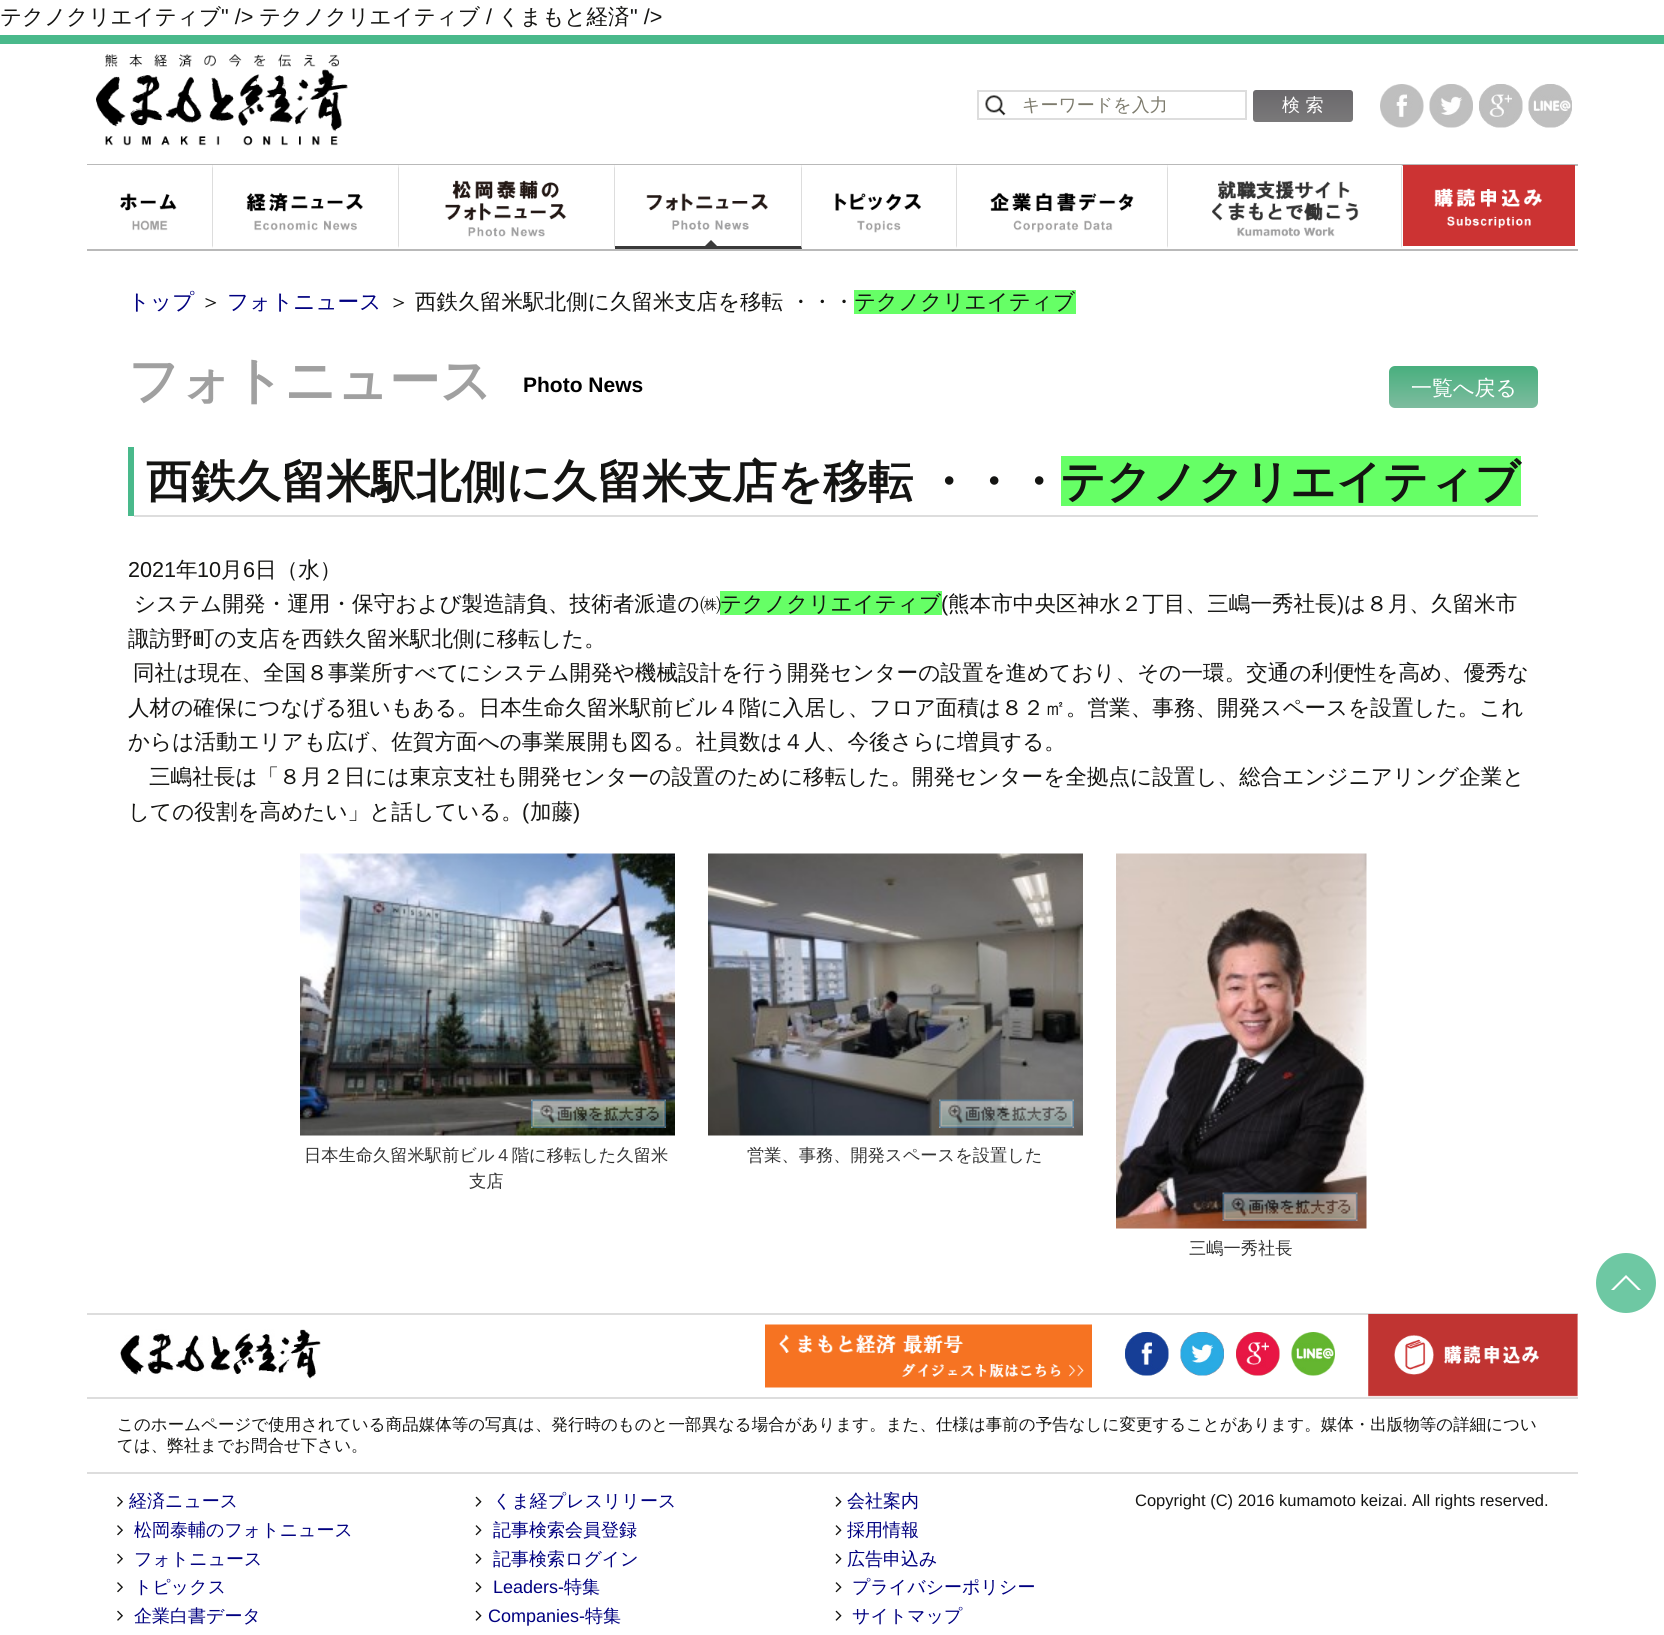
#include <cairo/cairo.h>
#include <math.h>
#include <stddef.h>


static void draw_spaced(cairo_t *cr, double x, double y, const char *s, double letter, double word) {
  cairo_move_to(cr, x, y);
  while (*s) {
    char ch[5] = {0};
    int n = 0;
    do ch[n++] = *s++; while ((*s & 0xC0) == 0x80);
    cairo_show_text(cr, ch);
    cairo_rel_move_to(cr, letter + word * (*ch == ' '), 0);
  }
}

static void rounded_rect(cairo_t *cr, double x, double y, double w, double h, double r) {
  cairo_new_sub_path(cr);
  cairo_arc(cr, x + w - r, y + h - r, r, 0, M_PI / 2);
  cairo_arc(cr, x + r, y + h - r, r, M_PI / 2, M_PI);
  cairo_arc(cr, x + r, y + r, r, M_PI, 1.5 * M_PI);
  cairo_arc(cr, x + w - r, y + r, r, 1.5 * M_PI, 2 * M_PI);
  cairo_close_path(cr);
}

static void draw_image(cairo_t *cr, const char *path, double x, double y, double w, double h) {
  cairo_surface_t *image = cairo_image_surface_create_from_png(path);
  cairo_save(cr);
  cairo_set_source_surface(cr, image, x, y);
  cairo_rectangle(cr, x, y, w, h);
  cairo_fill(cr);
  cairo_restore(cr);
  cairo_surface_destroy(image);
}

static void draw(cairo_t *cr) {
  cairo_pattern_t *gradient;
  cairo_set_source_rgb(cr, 1, 1, 1);
  cairo_paint(cr);
  cairo_set_source_rgb(cr, 73 / 255.0, 185 / 255.0, 139 / 255.0);
  cairo_rectangle(cr, 0, 35, 1664, 9);
  cairo_fill(cr);
  draw_image(cr, "images/1.png", 96, 54, 252, 92);
  draw_image(cr, "images/2.png", 985, 95, 21, 21);
  cairo_rectangle(cr, 978, 91, 268, 28);
  cairo_set_source_rgb(cr, 221 / 255.0, 221 / 255.0, 221 / 255.0);
  cairo_stroke(cr);
  gradient = cairo_pattern_create_linear(1303, 90, 1303, 122);
  cairo_pattern_add_color_stop_rgba(gradient, 0, 106 / 255.0, 104 / 255.0, 107 / 255.0, 1);
  cairo_pattern_add_color_stop_rgba(gradient, 1, 122 / 255.0, 121 / 255.0, 122 / 255.0, 1);
  cairo_set_source(cr, gradient);
  cairo_pattern_destroy(gradient);
  rounded_rect(cr, 1253, 90, 100, 32, 3);
  cairo_fill(cr);
  draw_image(cr, "images/3.png", 1380, 84, 44, 44);
  draw_image(cr, "images/4.png", 1429, 84, 44, 44);
  draw_image(cr, "images/5.png", 1479, 84, 44, 44);
  draw_image(cr, "images/6.png", 1528, 84, 44, 44);
  cairo_set_source_rgb(cr, 185 / 255.0, 185 / 255.0, 185 / 255.0);
  cairo_rectangle(cr, 87, 164, 1491, 2);
  cairo_fill(cr);
  cairo_rectangle(cr, 87, 249, 1491, 2);
  cairo_fill(cr);
  cairo_set_source_rgb(cr, 1, 1, 1);
  cairo_new_path(cr);
  cairo_move_to(cr, 87, 165);
  cairo_line_to(cr, 213, 165);
  cairo_line_to(cr, 212, 168);
  cairo_line_to(cr, 87, 168);
  cairo_close_path(cr);
  cairo_fill(cr);
  cairo_set_source_rgb(cr, 221 / 255.0, 221 / 255.0, 221 / 255.0);
  cairo_new_path(cr);
  cairo_move_to(cr, 213, 165);
  cairo_line_to(cr, 213, 249);
  cairo_line_to(cr, 212, 246);
  cairo_line_to(cr, 212, 168);
  cairo_close_path(cr);
  cairo_fill(cr);
  cairo_set_source_rgb(cr, 1, 1, 1);
  cairo_new_path(cr);
  cairo_move_to(cr, 213, 249);
  cairo_line_to(cr, 87, 249);
  cairo_line_to(cr, 87, 246);
  cairo_line_to(cr, 212, 246);
  cairo_close_path(cr);
  cairo_fill(cr);
  draw_image(cr, "images/7.png", 120, 193, 57, 38);
  cairo_new_path(cr);
  cairo_move_to(cr, 213, 165);
  cairo_line_to(cr, 399, 165);
  cairo_line_to(cr, 398, 168);
  cairo_line_to(cr, 213, 168);
  cairo_close_path(cr);
  cairo_fill(cr);
  cairo_set_source_rgb(cr, 221 / 255.0, 221 / 255.0, 221 / 255.0);
  cairo_new_path(cr);
  cairo_move_to(cr, 399, 165);
  cairo_line_to(cr, 399, 249);
  cairo_line_to(cr, 398, 246);
  cairo_line_to(cr, 398, 168);
  cairo_close_path(cr);
  cairo_fill(cr);
  cairo_set_source_rgb(cr, 1, 1, 1);
  cairo_new_path(cr);
  cairo_move_to(cr, 399, 249);
  cairo_line_to(cr, 213, 249);
  cairo_line_to(cr, 213, 246);
  cairo_line_to(cr, 398, 246);
  cairo_close_path(cr);
  cairo_fill(cr);
  draw_image(cr, "images/8.png", 246, 192, 117, 39);
  cairo_new_path(cr);
  cairo_move_to(cr, 399, 165);
  cairo_line_to(cr, 615, 165);
  cairo_line_to(cr, 614, 168);
  cairo_line_to(cr, 399, 168);
  cairo_close_path(cr);
  cairo_fill(cr);
  cairo_set_source_rgb(cr, 221 / 255.0, 221 / 255.0, 221 / 255.0);
  cairo_new_path(cr);
  cairo_move_to(cr, 615, 165);
  cairo_line_to(cr, 615, 249);
  cairo_line_to(cr, 614, 246);
  cairo_line_to(cr, 614, 168);
  cairo_close_path(cr);
  cairo_fill(cr);
  cairo_set_source_rgb(cr, 1, 1, 1);
  cairo_new_path(cr);
  cairo_move_to(cr, 615, 249);
  cairo_line_to(cr, 399, 249);
  cairo_line_to(cr, 399, 246);
  cairo_line_to(cr, 614, 246);
  cairo_close_path(cr);
  cairo_fill(cr);
  draw_image(cr, "images/9.png", 445, 180, 122, 57);
  cairo_new_path(cr);
  cairo_move_to(cr, 615, 165);
  cairo_line_to(cr, 802, 165);
  cairo_line_to(cr, 801, 168);
  cairo_line_to(cr, 615, 168);
  cairo_close_path(cr);
  cairo_fill(cr);
  cairo_set_source_rgb(cr, 221 / 255.0, 221 / 255.0, 221 / 255.0);
  cairo_new_path(cr);
  cairo_move_to(cr, 802, 165);
  cairo_line_to(cr, 802, 249);
  cairo_line_to(cr, 801, 246);
  cairo_line_to(cr, 801, 168);
  cairo_close_path(cr);
  cairo_fill(cr);
  cairo_set_source_rgb(cr, 58 / 255.0, 58 / 255.0, 58 / 255.0);
  cairo_new_path(cr);
  cairo_move_to(cr, 802, 249);
  cairo_line_to(cr, 615, 249);
  cairo_line_to(cr, 615, 246);
  cairo_line_to(cr, 801, 246);
  cairo_close_path(cr);
  cairo_fill(cr);
  draw_image(cr, "images/10.png", 646, 193, 122, 37);
  cairo_new_path(cr);
  cairo_move_to(cr, 717, 246);
  cairo_line_to(cr, 705, 246);
  cairo_line_to(cr, 711, 240);
  cairo_close_path(cr);
  cairo_fill(cr);
  cairo_set_source_rgb(cr, 1, 1, 1);
  cairo_new_path(cr);
  cairo_move_to(cr, 802, 165);
  cairo_line_to(cr, 957, 165);
  cairo_line_to(cr, 956, 168);
  cairo_line_to(cr, 802, 168);
  cairo_close_path(cr);
  cairo_fill(cr);
  cairo_set_source_rgb(cr, 221 / 255.0, 221 / 255.0, 221 / 255.0);
  cairo_new_path(cr);
  cairo_move_to(cr, 957, 165);
  cairo_line_to(cr, 957, 249);
  cairo_line_to(cr, 956, 246);
  cairo_line_to(cr, 956, 168);
  cairo_close_path(cr);
  cairo_fill(cr);
  cairo_set_source_rgb(cr, 1, 1, 1);
  cairo_new_path(cr);
  cairo_move_to(cr, 957, 249);
  cairo_line_to(cr, 802, 249);
  cairo_line_to(cr, 802, 246);
  cairo_line_to(cr, 956, 246);
  cairo_close_path(cr);
  cairo_fill(cr);
  draw_image(cr, "images/11.png", 835, 193, 86, 40);
  cairo_new_path(cr);
  cairo_move_to(cr, 957, 165);
  cairo_line_to(cr, 1168, 165);
  cairo_line_to(cr, 1167, 168);
  cairo_line_to(cr, 957, 168);
  cairo_close_path(cr);
  cairo_fill(cr);
  cairo_set_source_rgb(cr, 221 / 255.0, 221 / 255.0, 221 / 255.0);
  cairo_new_path(cr);
  cairo_move_to(cr, 1168, 165);
  cairo_line_to(cr, 1168, 249);
  cairo_line_to(cr, 1167, 246);
  cairo_line_to(cr, 1167, 168);
  cairo_close_path(cr);
  cairo_fill(cr);
  cairo_set_source_rgb(cr, 1, 1, 1);
  cairo_new_path(cr);
  cairo_move_to(cr, 1168, 249);
  cairo_line_to(cr, 957, 249);
  cairo_line_to(cr, 957, 246);
  cairo_line_to(cr, 1167, 246);
  cairo_close_path(cr);
  cairo_fill(cr);
  draw_image(cr, "images/12.png", 990, 192, 144, 41);
  cairo_new_path(cr);
  cairo_move_to(cr, 1168, 165);
  cairo_line_to(cr, 1402, 165);
  cairo_line_to(cr, 1401, 168);
  cairo_line_to(cr, 1168, 168);
  cairo_close_path(cr);
  cairo_fill(cr);
  cairo_set_source_rgb(cr, 221 / 255.0, 221 / 255.0, 221 / 255.0);
  cairo_new_path(cr);
  cairo_move_to(cr, 1402, 165);
  cairo_line_to(cr, 1402, 249);
  cairo_line_to(cr, 1401, 246);
  cairo_line_to(cr, 1401, 168);
  cairo_close_path(cr);
  cairo_fill(cr);
  cairo_set_source_rgb(cr, 1, 1, 1);
  cairo_new_path(cr);
  cairo_move_to(cr, 1402, 249);
  cairo_line_to(cr, 1168, 249);
  cairo_line_to(cr, 1168, 246);
  cairo_line_to(cr, 1401, 246);
  cairo_close_path(cr);
  cairo_fill(cr);
  draw_image(cr, "images/13.png", 1212, 180, 147, 57);
  cairo_set_source_rgb(cr, 204 / 255.0, 51 / 255.0, 51 / 255.0);
  cairo_rectangle(cr, 1403, 165, 172, 81);
  cairo_fill(cr);
  draw_image(cr, "images/14.png", 1434, 188, 108, 40);
  cairo_set_source_rgb(cr, 102 / 255.0, 1, 102 / 255.0);
  cairo_rectangle(cr, 854, 290, 222, 24);
  cairo_fill(cr);
  gradient = cairo_pattern_create_linear(1463, 366, 1463, 408);
  cairo_pattern_add_color_stop_rgba(gradient, 0, 72 / 255.0, 175 / 255.0, 126 / 255.0, 1);
  cairo_pattern_add_color_stop_rgba(gradient, 1, 126 / 255.0, 188 / 255.0, 159 / 255.0, 1);
  cairo_set_source(cr, gradient);
  cairo_pattern_destroy(gradient);
  rounded_rect(cr, 1389, 366, 149, 42, 6);
  cairo_fill(cr);
  cairo_set_source_rgb(cr, 73 / 255.0, 185 / 255.0, 139 / 255.0);
  cairo_rectangle(cr, 128, 447, 6, 69);
  cairo_fill(cr);
  cairo_set_source_rgb(cr, 102 / 255.0, 1, 102 / 255.0);
  cairo_rectangle(cr, 1061, 456, 460, 50);
  cairo_fill(cr);
  cairo_set_source_rgb(cr, 221 / 255.0, 221 / 255.0, 221 / 255.0);
  cairo_rectangle(cr, 134, 515, 1404, 2);
  cairo_fill(cr);
  cairo_set_source_rgb(cr, 102 / 255.0, 1, 102 / 255.0);
  cairo_rectangle(cr, 720, 591, 222, 24);
  cairo_fill(cr);
  draw_image(cr, "images/15.png", 300, 853, 375, 283);
  draw_image(cr, "images/16.png", 531, 1099, 135, 29);
  draw_image(cr, "images/17.png", 708, 853, 375, 283);
  draw_image(cr, "images/18.png", 939, 1099, 135, 29);
  draw_image(cr, "images/19.png", 1116, 853, 251, 376);
  draw_image(cr, "images/20.png", 1222, 1192, 136, 29);
  cairo_set_source_rgb(cr, 110 / 255.0, 200 / 255.0, 163 / 255.0);
  cairo_arc(cr, 1626, 1283, 30, 0, 2 * M_PI);
  cairo_fill(cr);
  cairo_set_source_rgb(cr, 1, 1, 1);
  cairo_new_path(cr);
  cairo_move_to(cr, 1641, 1290);
  cairo_line_to(cr, 1611, 1290);
  cairo_line_to(cr, 1626, 1275);
  cairo_close_path(cr);
  cairo_fill(cr);
  cairo_set_source_rgb(cr, 110 / 255.0, 200 / 255.0, 163 / 255.0);
  cairo_new_path(cr);
  cairo_move_to(cr, 1641, 1293);
  cairo_line_to(cr, 1611, 1293);
  cairo_line_to(cr, 1626, 1278);
  cairo_close_path(cr);
  cairo_fill(cr);
  cairo_set_source_rgb(cr, 221 / 255.0, 221 / 255.0, 221 / 255.0);
  cairo_rectangle(cr, 87, 1313, 1491, 2);
  cairo_fill(cr);
  draw_image(cr, "images/21.png", 120, 1329, 201, 50);
  draw_image(cr, "images/22.png", 765, 1324, 327, 64);
  draw_image(cr, "images/23.png", 1125, 1332, 44, 44);
  draw_image(cr, "images/24.png", 1180, 1332, 44, 44);
  draw_image(cr, "images/25.png", 1236, 1332, 44, 44);
  draw_image(cr, "images/26.png", 1291, 1332, 44, 44);
  draw_image(cr, "images/27.png", 1368, 1314, 210, 83);
  cairo_rectangle(cr, 87, 1397, 1491, 2);
  cairo_fill(cr);
  cairo_rectangle(cr, 87, 1472, 1491, 2);
  cairo_fill(cr);
  draw_image(cr, "images/28.png", 117, 1496, 6, 11);
  draw_image(cr, "images/29.png", 117, 1525, 6, 11);
  draw_image(cr, "images/28.png", 117, 1553, 6, 11);
  draw_image(cr, "images/29.png", 117, 1582, 6, 11);
  draw_image(cr, "images/28.png", 117, 1610, 6, 11);
  draw_image(cr, "images/30.png", 475, 1496, 7, 11);
  draw_image(cr, "images/31.png", 475, 1525, 7, 11);
  draw_image(cr, "images/30.png", 475, 1553, 7, 11);
  draw_image(cr, "images/31.png", 475, 1582, 7, 11);
  draw_image(cr, "images/30.png", 475, 1610, 7, 11);
  draw_image(cr, "images/30.png", 835, 1496, 7, 11);
  draw_image(cr, "images/31.png", 835, 1525, 7, 11);
  draw_image(cr, "images/30.png", 835, 1553, 7, 11);
  draw_image(cr, "images/31.png", 835, 1582, 7, 11);
  draw_image(cr, "images/30.png", 835, 1610, 7, 11);
  cairo_select_font_face(cr, "WenQuanYi Zen Hei Medium", CAIRO_FONT_SLANT_NORMAL, CAIRO_FONT_WEIGHT_NORMAL);
  cairo_set_font_size(cr, 21.6);
  cairo_set_source_rgb(cr, 20 / 255.0, 20 / 255.0, 18 / 255.0);
  cairo_move_to(cr, 0, 24);
  cairo_show_text(cr, "テクノクリエイティブ");
  cairo_select_font_face(cr, "Liberation Sans", CAIRO_FONT_SLANT_NORMAL, CAIRO_FONT_WEIGHT_NORMAL);
  cairo_move_to(cr, 221, 24);
  cairo_show_text(cr, "\" />");
  cairo_select_font_face(cr, "WenQuanYi Zen Hei Medium", CAIRO_FONT_SLANT_NORMAL, CAIRO_FONT_WEIGHT_NORMAL);
  cairo_move_to(cr, 259, 24);
  cairo_show_text(cr, "テクノクリエイティブ");
  cairo_select_font_face(cr, "Liberation Sans", CAIRO_FONT_SLANT_NORMAL, CAIRO_FONT_WEIGHT_NORMAL);
  cairo_move_to(cr, 486, 24);
  cairo_show_text(cr, "/");
  cairo_select_font_face(cr, "WenQuanYi Zen Hei Medium", CAIRO_FONT_SLANT_NORMAL, CAIRO_FONT_WEIGHT_NORMAL);
  cairo_move_to(cr, 498, 24);
  cairo_show_text(cr, "くまもと経済");
  cairo_select_font_face(cr, "Liberation Sans", CAIRO_FONT_SLANT_NORMAL, CAIRO_FONT_WEIGHT_NORMAL);
  cairo_move_to(cr, 630, 24);
  cairo_show_text(cr, "\" />");
  cairo_select_font_face(cr, "WenQuanYi Zen Hei Medium", CAIRO_FONT_SLANT_NORMAL, CAIRO_FONT_WEIGHT_NORMAL);
  cairo_set_font_size(cr, 18);
  cairo_set_source_rgb(cr, 125 / 255.0, 123 / 255.0, 109 / 255.0);
  cairo_move_to(cr, 1022, 111);
  cairo_show_text(cr, "キーワードを入力");
  cairo_set_source_rgb(cr, 1, 1, 1);
  cairo_move_to(cr, 1282, 111);
  cairo_show_text(cr, "検 索");
  cairo_set_font_size(cr, 21.6);
  cairo_set_source_rgb(cr, 0, 0, 128 / 255.0);
  cairo_move_to(cr, 128, 309);
  cairo_show_text(cr, "トップ");
  cairo_set_source_rgb(cr, 20 / 255.0, 20 / 255.0, 18 / 255.0);
  cairo_move_to(cr, 200, 309);
  cairo_show_text(cr, "＞");
  cairo_set_source_rgb(cr, 0, 0, 128 / 255.0);
  cairo_move_to(cr, 227, 309);
  cairo_show_text(cr, "フォトニュース");
  cairo_set_source_rgb(cr, 20 / 255.0, 20 / 255.0, 18 / 255.0);
  cairo_move_to(cr, 388, 309);
  cairo_show_text(cr, "＞");
  cairo_move_to(cr, 415, 309);
  cairo_show_text(cr, "西鉄久留米駅北側に久留米支店を移転 ・・・");
  cairo_move_to(cr, 854, 309);
  cairo_show_text(cr, "テクノクリエイティブ");
  cairo_select_font_face(cr, "WenQuanYi Zen Hei", CAIRO_FONT_SLANT_NORMAL, CAIRO_FONT_WEIGHT_BOLD);
  cairo_set_font_size(cr, 51);
  cairo_set_source_rgb(cr, 160 / 255.0, 160 / 255.0, 160 / 255.0);
  cairo_move_to(cr, 128, 398);
  cairo_show_text(cr, "フォトニュース");
  cairo_select_font_face(cr, "Liberation Sans", CAIRO_FONT_SLANT_NORMAL, CAIRO_FONT_WEIGHT_BOLD);
  cairo_set_font_size(cr, 21);
  cairo_set_source_rgb(cr, 0, 0, 0);
  cairo_move_to(cr, 523, 392);
  cairo_show_text(cr, "Photo News");
  cairo_select_font_face(cr, "WenQuanYi Zen Hei Medium", CAIRO_FONT_SLANT_NORMAL, CAIRO_FONT_WEIGHT_NORMAL);
  cairo_set_source_rgb(cr, 1, 1, 1);
  cairo_move_to(cr, 1411, 395);
  cairo_show_text(cr, "一覧へ戻る");
  cairo_select_font_face(cr, "WenQuanYi Zen Hei", CAIRO_FONT_SLANT_NORMAL, CAIRO_FONT_WEIGHT_BOLD);
  cairo_set_font_size(cr, 45);
  cairo_set_source_rgb(cr, 20 / 255.0, 20 / 255.0, 18 / 255.0);
  draw_spaced(cr, 146, 497, "西鉄久留米駅北側に久留米支店を移転 ・・・", 0, -1);
  cairo_move_to(cr, 1060, 497);
  cairo_show_text(cr, "テクノクリエイティブ");
  cairo_select_font_face(cr, "Liberation Sans", CAIRO_FONT_SLANT_NORMAL, CAIRO_FONT_WEIGHT_NORMAL);
  cairo_set_font_size(cr, 21.6);
  cairo_move_to(cr, 128, 577);
  cairo_show_text(cr, "2021");
  cairo_select_font_face(cr, "WenQuanYi Zen Hei Medium", CAIRO_FONT_SLANT_NORMAL, CAIRO_FONT_WEIGHT_NORMAL);
  cairo_move_to(cr, 176, 577);
  cairo_show_text(cr, "年");
  cairo_select_font_face(cr, "Liberation Sans", CAIRO_FONT_SLANT_NORMAL, CAIRO_FONT_WEIGHT_NORMAL);
  cairo_move_to(cr, 197, 577);
  cairo_show_text(cr, "10");
  cairo_select_font_face(cr, "WenQuanYi Zen Hei Medium", CAIRO_FONT_SLANT_NORMAL, CAIRO_FONT_WEIGHT_NORMAL);
  cairo_move_to(cr, 221, 577);
  cairo_show_text(cr, "月");
  cairo_select_font_face(cr, "Liberation Sans", CAIRO_FONT_SLANT_NORMAL, CAIRO_FONT_WEIGHT_NORMAL);
  cairo_move_to(cr, 243, 577);
  cairo_show_text(cr, "6");
  cairo_select_font_face(cr, "WenQuanYi Zen Hei Medium", CAIRO_FONT_SLANT_NORMAL, CAIRO_FONT_WEIGHT_NORMAL);
  cairo_move_to(cr, 255, 577);
  cairo_show_text(cr, "日（水）");
  cairo_move_to(cr, 134, 611);
  cairo_show_text(cr, "システム開発・運用・保守および製造請負、技術者派遣の㈱");
  cairo_move_to(cr, 720, 611);
  cairo_show_text(cr, "テクノクリエイティブ");
  cairo_select_font_face(cr, "Liberation Sans", CAIRO_FONT_SLANT_NORMAL, CAIRO_FONT_WEIGHT_NORMAL);
  cairo_move_to(cr, 941, 611);
  cairo_show_text(cr, "(");
  cairo_select_font_face(cr, "WenQuanYi Zen Hei Medium", CAIRO_FONT_SLANT_NORMAL, CAIRO_FONT_WEIGHT_NORMAL);
  cairo_move_to(cr, 948, 611);
  cairo_show_text(cr, "熊本市中央区神水２丁目、三嶋一秀社長");
  cairo_select_font_face(cr, "Liberation Sans", CAIRO_FONT_SLANT_NORMAL, CAIRO_FONT_WEIGHT_NORMAL);
  cairo_move_to(cr, 1337, 611);
  cairo_show_text(cr, ")");
  cairo_select_font_face(cr, "WenQuanYi Zen Hei Medium", CAIRO_FONT_SLANT_NORMAL, CAIRO_FONT_WEIGHT_NORMAL);
  cairo_move_to(cr, 1344, 611);
  cairo_show_text(cr, "は８月、久留米市");
  cairo_move_to(cr, 128, 646);
  cairo_show_text(cr, "諏訪野町の支店を西鉄久留米駅北側に移転した。");
  cairo_move_to(cr, 133, 680);
  cairo_show_text(cr, "同社は現在、全国８事業所すべてにシステム開発や機械設計を行う開発センターの設置を進めており、その一環。交通の利便性を高め、優秀な");
  cairo_move_to(cr, 128, 715);
  cairo_show_text(cr, "人材の確保につなげる狙いもある。日本生命久留米駅前ビル４階に入居し、フロア面積は８２㎡。営業、事務、開発スペースを設置した。これ");
  cairo_move_to(cr, 128, 749);
  cairo_show_text(cr, "からは活動エリアも広げ、佐賀方面への事業展開も図る。社員数は４人、今後さらに増員する。");
  cairo_move_to(cr, 149, 784);
  cairo_show_text(cr, "三嶋社長は「８月２日には東京支社も開発センターの設置のために移転した。開発センターを全拠点に設置し、総合エンジニアリング企業と");
  cairo_move_to(cr, 128, 819);
  cairo_show_text(cr, "しての役割を高めたい」と話している。");
  cairo_select_font_face(cr, "Liberation Sans", CAIRO_FONT_SLANT_NORMAL, CAIRO_FONT_WEIGHT_NORMAL);
  cairo_move_to(cr, 522, 819);
  cairo_show_text(cr, "(");
  cairo_select_font_face(cr, "WenQuanYi Zen Hei Medium", CAIRO_FONT_SLANT_NORMAL, CAIRO_FONT_WEIGHT_NORMAL);
  cairo_move_to(cr, 530, 819);
  cairo_show_text(cr, "加藤");
  cairo_select_font_face(cr, "Liberation Sans", CAIRO_FONT_SLANT_NORMAL, CAIRO_FONT_WEIGHT_NORMAL);
  cairo_move_to(cr, 573, 819);
  cairo_show_text(cr, ")");
  cairo_select_font_face(cr, "WenQuanYi Zen Hei Medium", CAIRO_FONT_SLANT_NORMAL, CAIRO_FONT_WEIGHT_NORMAL);
  cairo_set_font_size(cr, 17.25);
  cairo_set_source_rgb(cr, 51 / 255.0, 51 / 255.0, 51 / 255.0);
  cairo_move_to(cr, 304, 1161);
  cairo_show_text(cr, "日本生命久留米駅前ビル４階に移転した久留米");
  cairo_move_to(cr, 469, 1187);
  cairo_show_text(cr, "支店");
  cairo_move_to(cr, 747, 1161);
  cairo_show_text(cr, "営業、事務、開発スペースを設置した");
  cairo_move_to(cr, 1189, 1254);
  cairo_show_text(cr, "三嶋一秀社長");
  cairo_set_font_size(cr, 16.5);
  cairo_set_source_rgb(cr, 20 / 255.0, 20 / 255.0, 18 / 255.0);
  cairo_move_to(cr, 117, 1430);
  cairo_show_text(cr, "このホームページで使用されている商品媒体等の写真は、発行時のものと一部異なる場合があります。また、仕様は事前の予告なしに変更することがあります。媒体・出版物等の詳細につい");
  cairo_move_to(cr, 117, 1451);
  cairo_show_text(cr, "ては、弊社までお問合せ下さい。");
  cairo_set_font_size(cr, 18);
  cairo_set_source_rgb(cr, 0, 0, 128 / 255.0);
  cairo_move_to(cr, 129, 1507);
  cairo_show_text(cr, "経済ニュース");
  cairo_move_to(cr, 134, 1536);
  cairo_show_text(cr, "松岡泰輔のフォトニュース");
  cairo_move_to(cr, 134, 1565);
  cairo_show_text(cr, "フォトニュース");
  cairo_move_to(cr, 134, 1593);
  cairo_show_text(cr, "トピックス");
  cairo_move_to(cr, 134, 1622);
  cairo_show_text(cr, "企業白書データ");
  cairo_move_to(cr, 493, 1507);
  cairo_show_text(cr, "くま経プレスリリース");
  cairo_move_to(cr, 493, 1536);
  cairo_show_text(cr, "記事検索会員登録");
  cairo_move_to(cr, 493, 1565);
  cairo_show_text(cr, "記事検索ログイン");
  cairo_select_font_face(cr, "Liberation Sans", CAIRO_FONT_SLANT_NORMAL, CAIRO_FONT_WEIGHT_NORMAL);
  cairo_move_to(cr, 493, 1593);
  cairo_show_text(cr, "Leaders-");
  cairo_select_font_face(cr, "WenQuanYi Zen Hei Medium", CAIRO_FONT_SLANT_NORMAL, CAIRO_FONT_WEIGHT_NORMAL);
  cairo_move_to(cr, 564, 1593);
  cairo_show_text(cr, "特集");
  cairo_select_font_face(cr, "Liberation Sans", CAIRO_FONT_SLANT_NORMAL, CAIRO_FONT_WEIGHT_NORMAL);
  cairo_move_to(cr, 488, 1622);
  cairo_show_text(cr, "Companies-");
  cairo_select_font_face(cr, "WenQuanYi Zen Hei Medium", CAIRO_FONT_SLANT_NORMAL, CAIRO_FONT_WEIGHT_NORMAL);
  cairo_move_to(cr, 585, 1622);
  cairo_show_text(cr, "特集");
  cairo_move_to(cr, 847, 1507);
  cairo_show_text(cr, "会社案内");
  cairo_move_to(cr, 847, 1536);
  cairo_show_text(cr, "採用情報");
  cairo_move_to(cr, 847, 1565);
  cairo_show_text(cr, "広告申込み");
  cairo_move_to(cr, 852, 1593);
  cairo_show_text(cr, "プライバシーポリシー");
  cairo_move_to(cr, 852, 1622);
  cairo_show_text(cr, "サイトマップ");
  cairo_select_font_face(cr, "Liberation Sans", CAIRO_FONT_SLANT_NORMAL, CAIRO_FONT_WEIGHT_NORMAL);
  cairo_set_font_size(cr, 16.5);
  cairo_set_source_rgb(cr, 20 / 255.0, 20 / 255.0, 18 / 255.0);
  cairo_move_to(cr, 1135, 1506);
  cairo_show_text(cr, "Copyright (C) 2016 kumamoto keizai. All rights reserved.");
}

int main(void) {
  cairo_surface_t *surface = cairo_image_surface_create(CAIRO_FORMAT_RGB24, 1664, 1635);
  cairo_t *cr = cairo_create(surface);
  cairo_font_options_t *options = cairo_font_options_create();
  cairo_font_options_set_hint_metrics(options, CAIRO_HINT_METRICS_OFF);
  cairo_font_options_set_hint_style(options, CAIRO_HINT_STYLE_NONE);
  cairo_set_font_options(cr, options);
  cairo_set_miter_limit(cr, 4);
  draw(cr);
  cairo_surface_write_to_png(surface, "out.png");
  cairo_font_options_destroy(options);
  cairo_destroy(cr);
  cairo_surface_destroy(surface);
  return 0;
}
